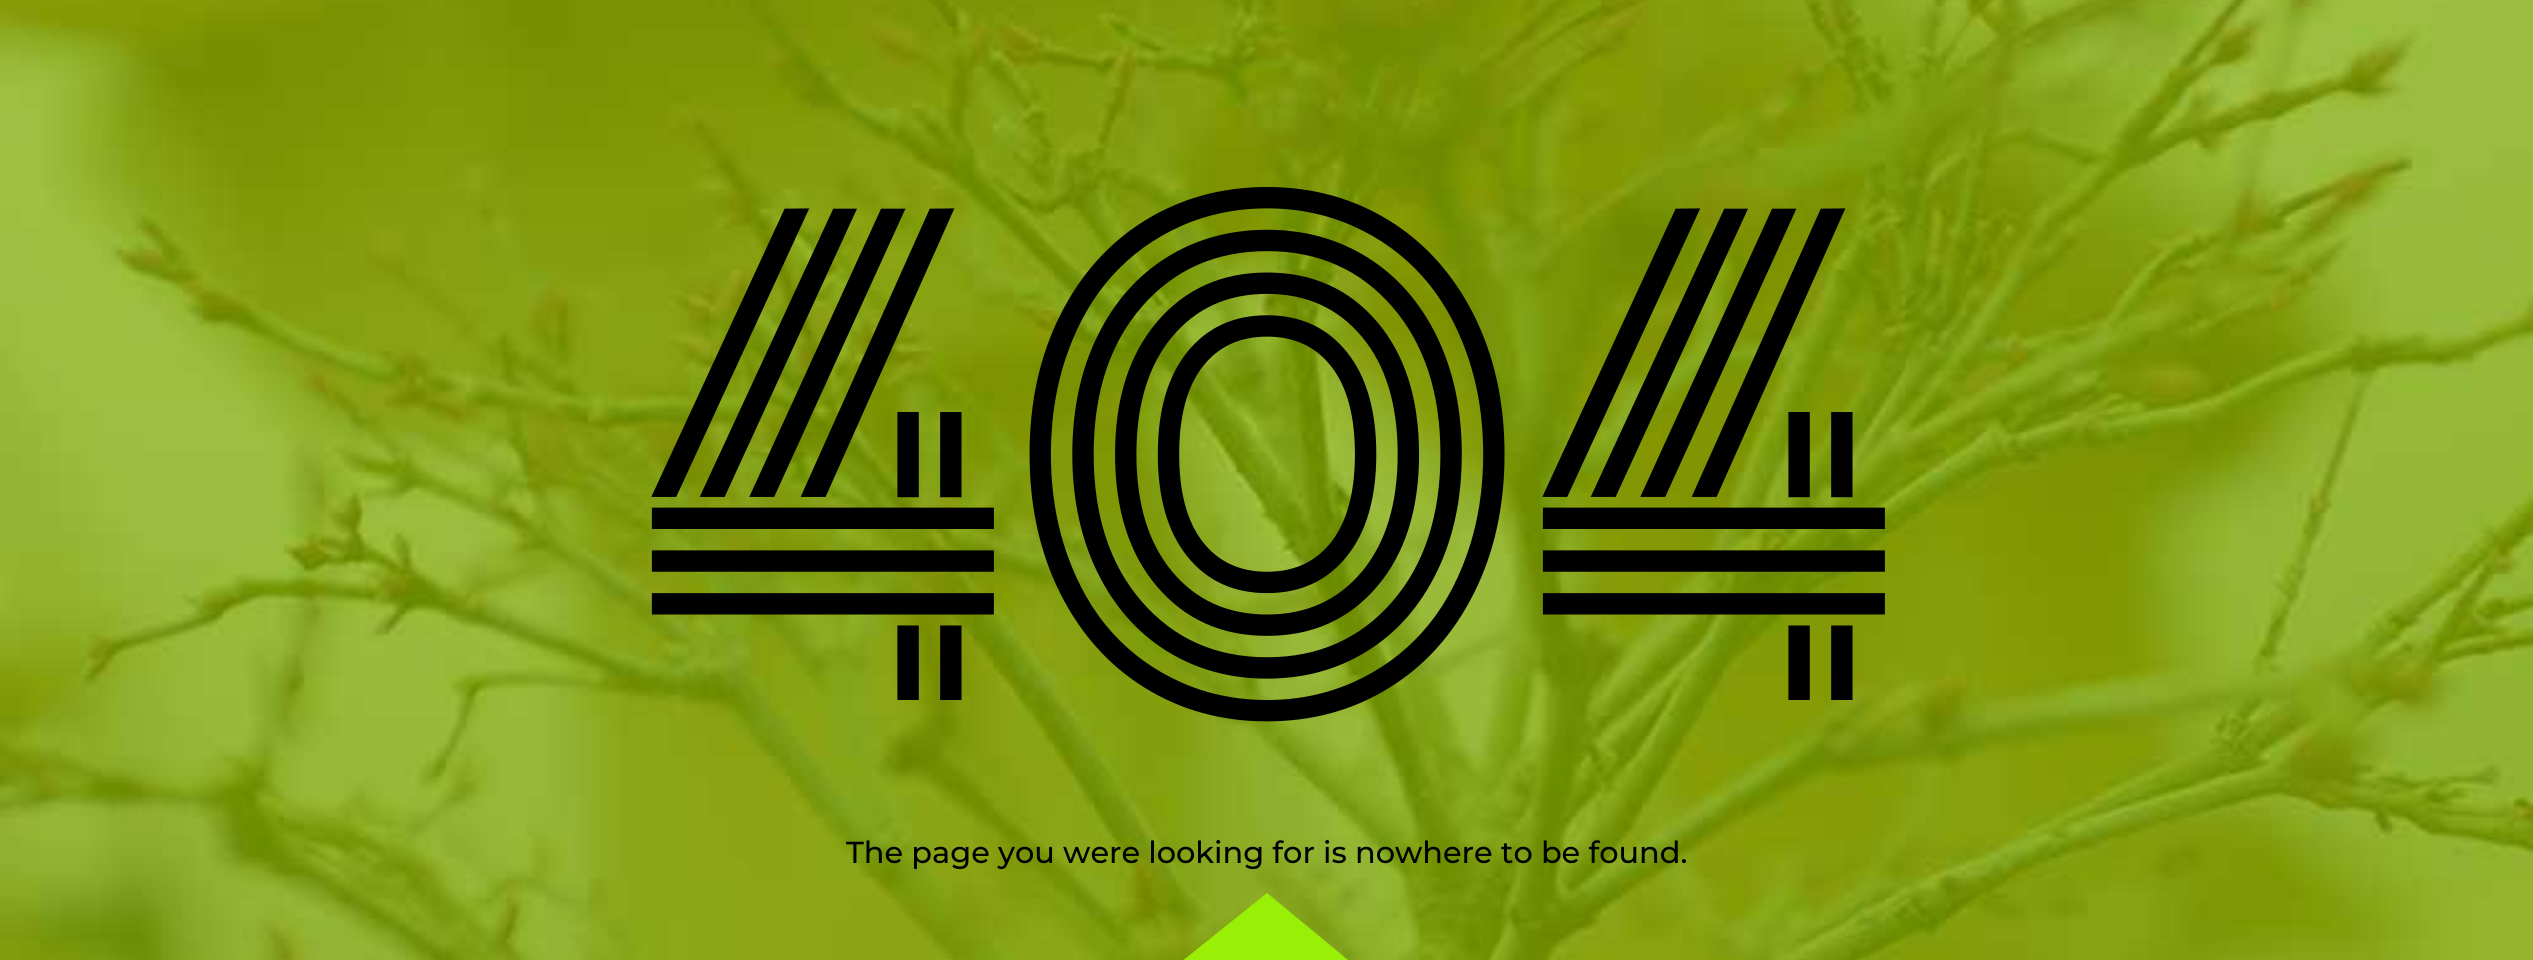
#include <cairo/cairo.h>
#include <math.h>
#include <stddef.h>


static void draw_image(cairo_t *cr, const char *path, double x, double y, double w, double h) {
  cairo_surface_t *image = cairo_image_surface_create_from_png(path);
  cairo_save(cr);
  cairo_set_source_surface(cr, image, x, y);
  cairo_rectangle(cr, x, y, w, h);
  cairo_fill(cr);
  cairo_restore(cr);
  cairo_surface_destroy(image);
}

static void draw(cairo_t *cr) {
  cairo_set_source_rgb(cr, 1, 1, 1);
  cairo_paint(cr);
  draw_image(cr, "images/1.png", 0, 0, 2533, 960);
  cairo_set_source_rgb(cr, 154 / 255.0, 239 / 255.0, 7 / 255.0);
  cairo_new_path(cr);
  cairo_move_to(cr, 309, 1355);
  cairo_line_to(cr, 498, 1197);
  cairo_line_to(cr, 735, 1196);
  cairo_line_to(cr, 877, 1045);
  cairo_line_to(cr, 1055, 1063);
  cairo_line_to(cr, 1267, 893);
  cairo_line_to(cr, 1470, 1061);
  cairo_line_to(cr, 1639, 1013);
  cairo_line_to(cr, 1813, 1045);
  cairo_line_to(cr, 1964, 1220);
  cairo_line_to(cr, 2109, 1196);
  cairo_line_to(cr, 2241, 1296);
  cairo_line_to(cr, 2393, 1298);
  cairo_line_to(cr, 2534, 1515);
  cairo_line_to(cr, 0, 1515);
  cairo_line_to(cr, 128, 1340);
  cairo_close_path(cr);
  cairo_fill(cr);
  cairo_select_font_face(cr, "Monoton", CAIRO_FONT_SLANT_NORMAL, CAIRO_FONT_WEIGHT_NORMAL);
  cairo_set_font_size(cr, 608);
  cairo_set_source_rgb(cr, 0, 0, 0);
  cairo_move_to(cr, 632, 700);
  cairo_show_text(cr, "404");
  cairo_select_font_face(cr, "Montserrat Thin", CAIRO_FONT_SLANT_NORMAL, CAIRO_FONT_WEIGHT_NORMAL);
  cairo_set_font_size(cr, 30.4);
  cairo_move_to(cr, 846, 863);
  cairo_show_text(cr, "The page you were looking for is nowhere to be found.");
}

int main(void) {
  cairo_surface_t *surface = cairo_image_surface_create(CAIRO_FORMAT_RGB24, 2533, 960);
  cairo_t *cr = cairo_create(surface);
  cairo_font_options_t *options = cairo_font_options_create();
  cairo_font_options_set_hint_metrics(options, CAIRO_HINT_METRICS_OFF);
  cairo_font_options_set_hint_style(options, CAIRO_HINT_STYLE_NONE);
  cairo_set_font_options(cr, options);
  cairo_set_miter_limit(cr, 4);
  draw(cr);
  cairo_surface_write_to_png(surface, "out.png");
  cairo_font_options_destroy(options);
  cairo_destroy(cr);
  cairo_surface_destroy(surface);
  return 0;
}
